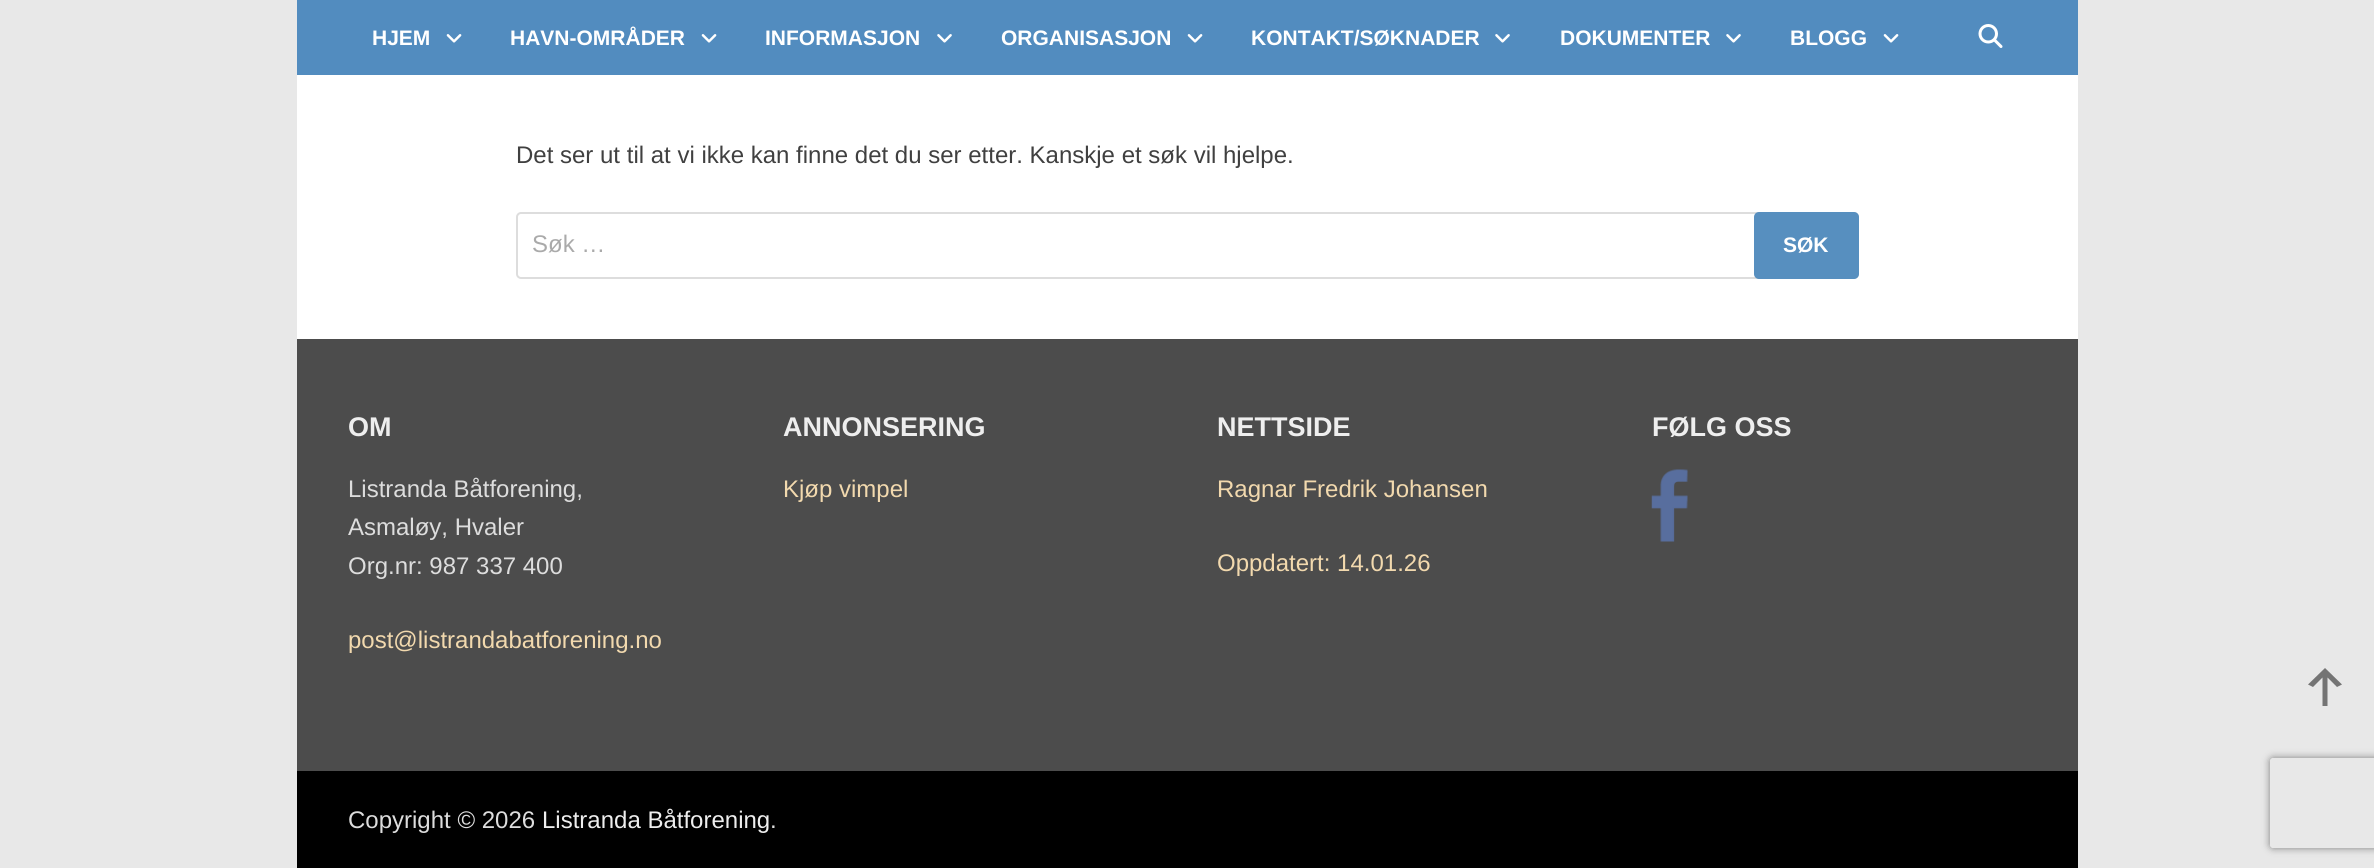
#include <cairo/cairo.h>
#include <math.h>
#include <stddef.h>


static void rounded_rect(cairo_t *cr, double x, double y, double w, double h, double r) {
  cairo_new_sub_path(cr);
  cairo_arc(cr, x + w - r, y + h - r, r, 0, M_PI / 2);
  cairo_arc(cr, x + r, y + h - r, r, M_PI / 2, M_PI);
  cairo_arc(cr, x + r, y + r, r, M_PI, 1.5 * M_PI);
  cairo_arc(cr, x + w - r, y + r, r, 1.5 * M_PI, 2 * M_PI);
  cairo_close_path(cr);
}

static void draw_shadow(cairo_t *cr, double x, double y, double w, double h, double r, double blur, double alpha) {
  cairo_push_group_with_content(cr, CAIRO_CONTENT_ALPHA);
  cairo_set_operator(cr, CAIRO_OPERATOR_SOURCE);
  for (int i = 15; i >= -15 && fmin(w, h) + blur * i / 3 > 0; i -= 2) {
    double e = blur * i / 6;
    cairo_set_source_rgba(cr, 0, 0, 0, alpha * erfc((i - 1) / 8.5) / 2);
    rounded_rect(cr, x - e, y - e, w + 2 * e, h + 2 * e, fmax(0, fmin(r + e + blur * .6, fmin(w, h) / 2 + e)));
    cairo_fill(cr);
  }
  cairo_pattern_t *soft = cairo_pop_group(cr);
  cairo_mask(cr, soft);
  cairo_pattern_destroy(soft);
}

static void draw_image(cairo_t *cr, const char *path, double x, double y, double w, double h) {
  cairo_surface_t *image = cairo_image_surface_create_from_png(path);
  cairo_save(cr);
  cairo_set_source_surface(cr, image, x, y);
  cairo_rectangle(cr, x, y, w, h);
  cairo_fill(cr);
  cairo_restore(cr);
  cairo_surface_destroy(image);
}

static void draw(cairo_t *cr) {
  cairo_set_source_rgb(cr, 232 / 255.0, 232 / 255.0, 232 / 255.0);
  cairo_paint(cr);
  cairo_set_source_rgb(cr, 1, 1, 1);
  cairo_rectangle(cr, 297, 75, 1781, 264);
  cairo_fill(cr);
  cairo_set_source_rgb(cr, 82 / 255.0, 140 / 255.0, 191 / 255.0);
  cairo_rectangle(cr, 297, 0, 1781, 75);
  cairo_fill(cr);
  draw_image(cr, "images/1.png", 446, 34, 16, 9);
  draw_image(cr, "images/1.png", 701, 34, 16, 9);
  draw_image(cr, "images/2.png", 937, 34, 15, 9);
  draw_image(cr, "images/1.png", 1187, 34, 16, 9);
  draw_image(cr, "images/2.png", 1495, 34, 15, 9);
  draw_image(cr, "images/2.png", 1726, 34, 15, 9);
  draw_image(cr, "images/1.png", 1883, 34, 16, 9);
  draw_image(cr, "images/3.png", 1978, 24, 25, 24);
  rounded_rect(cr, 517, 213, 1341, 65, 4);
  cairo_set_source_rgb(cr, 221 / 255.0, 221 / 255.0, 221 / 255.0);
  cairo_stroke(cr);
  cairo_set_source_rgb(cr, 87 / 255.0, 143 / 255.0, 191 / 255.0);
  rounded_rect(cr, 1754, 212, 105, 67, 5);
  cairo_fill(cr);
  cairo_set_source_rgb(cr, 76 / 255.0, 76 / 255.0, 76 / 255.0);
  cairo_rectangle(cr, 297, 339, 1781, 432);
  cairo_fill(cr);
  draw_image(cr, "images/4.png", 1651, 469, 37, 73);
  cairo_set_source_rgb(cr, 0, 0, 0);
  cairo_rectangle(cr, 297, 771, 1781, 97);
  cairo_fill(cr);
  cairo_set_source_rgb(cr, 116 / 255.0, 116 / 255.0, 116 / 255.0);
  cairo_new_path(cr);
  cairo_move_to(cr, 2327.5, 706);
  cairo_line_to(cr, 2322.5, 706);
  cairo_line_to(cr, 2322.5, 677.5);
  cairo_line_to(cr, 2313, 687);
  cairo_line_to(cr, 2308, 684.5);
  cairo_line_to(cr, 2325, 668);
  cairo_line_to(cr, 2342, 684.5);
  cairo_line_to(cr, 2337, 687);
  cairo_line_to(cr, 2327.5, 677.5);
  cairo_close_path(cr);
  cairo_fill(cr);
  cairo_save(cr);
  cairo_set_fill_rule(cr, CAIRO_FILL_RULE_EVEN_ODD);
  cairo_new_path(cr);
  cairo_move_to(cr, 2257, 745);
  cairo_line_to(cr, 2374, 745);
  cairo_line_to(cr, 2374, 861);
  cairo_line_to(cr, 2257, 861);
  cairo_close_path(cr);
  cairo_move_to(cr, 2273, 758);
  cairo_line_to(cr, 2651, 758);
  cairo_curve_to(cr, 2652.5, 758, 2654, 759.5, 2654, 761);
  cairo_line_to(cr, 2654, 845);
  cairo_curve_to(cr, 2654, 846.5, 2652.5, 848, 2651, 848);
  cairo_line_to(cr, 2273, 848);
  cairo_curve_to(cr, 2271.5, 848, 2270, 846.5, 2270, 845);
  cairo_line_to(cr, 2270, 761);
  cairo_curve_to(cr, 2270, 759.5, 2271.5, 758, 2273, 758);
  cairo_close_path(cr);
  cairo_clip(cr);
  cairo_set_source_rgb(cr, 128 / 255.0, 128 / 255.0, 128 / 255.0);
  draw_shadow(cr, 2270, 758, 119, 90, 3, 4, 1);
  cairo_restore(cr);
  cairo_select_font_face(cr, "Liberation Sans", CAIRO_FONT_SLANT_NORMAL, CAIRO_FONT_WEIGHT_BOLD);
  cairo_set_font_size(cr, 21);
  cairo_set_source_rgb(cr, 1, 1, 1);
  cairo_move_to(cr, 372, 45);
  cairo_show_text(cr, "HJEM");
  cairo_move_to(cr, 510, 45);
  cairo_show_text(cr, "HAVN-OMRÅDER");
  cairo_move_to(cr, 765, 45);
  cairo_show_text(cr, "INFORMASJON");
  cairo_move_to(cr, 1001, 45);
  cairo_show_text(cr, "ORGANISASJON");
  cairo_move_to(cr, 1251, 45);
  cairo_show_text(cr, "KONTAKT/SØKNADER");
  cairo_move_to(cr, 1560, 45);
  cairo_show_text(cr, "DOKUMENTER");
  cairo_move_to(cr, 1790, 45);
  cairo_show_text(cr, "BLOGG");
  cairo_select_font_face(cr, "Liberation Sans", CAIRO_FONT_SLANT_NORMAL, CAIRO_FONT_WEIGHT_NORMAL);
  cairo_set_font_size(cr, 24);
  cairo_set_source_rgb(cr, 64 / 255.0, 64 / 255.0, 64 / 255.0);
  cairo_move_to(cr, 516, 163);
  cairo_show_text(cr, "Det ser ut til at vi ikke kan finne det du ser etter. Kanskje et søk vil hjelpe.");
  cairo_set_source_rgb(cr, 170 / 255.0, 170 / 255.0, 170 / 255.0);
  cairo_move_to(cr, 532, 252);
  cairo_show_text(cr, "Søk …");
  cairo_select_font_face(cr, "Liberation Sans", CAIRO_FONT_SLANT_NORMAL, CAIRO_FONT_WEIGHT_BOLD);
  cairo_set_font_size(cr, 21);
  cairo_set_source_rgb(cr, 1, 1, 1);
  cairo_move_to(cr, 1783, 252);
  cairo_show_text(cr, "SØK");
  cairo_set_font_size(cr, 27);
  cairo_set_source_rgb(cr, 238 / 255.0, 238 / 255.0, 238 / 255.0);
  cairo_move_to(cr, 348, 436);
  cairo_show_text(cr, "OM");
  cairo_select_font_face(cr, "Liberation Sans", CAIRO_FONT_SLANT_NORMAL, CAIRO_FONT_WEIGHT_NORMAL);
  cairo_set_font_size(cr, 24);
  cairo_set_source_rgb(cr, 221 / 255.0, 221 / 255.0, 221 / 255.0);
  cairo_move_to(cr, 348, 497);
  cairo_show_text(cr, "Listranda Båtforening,");
  cairo_move_to(cr, 348, 535);
  cairo_show_text(cr, "Asmaløy, Hvaler");
  cairo_move_to(cr, 348, 574);
  cairo_show_text(cr, "Org.nr: 987 337 400");
  cairo_set_source_rgb(cr, 242 / 255.0, 217 / 255.0, 174 / 255.0);
  cairo_move_to(cr, 348, 648);
  cairo_show_text(cr, "post@listrandabatforening.no");
  cairo_select_font_face(cr, "Liberation Sans", CAIRO_FONT_SLANT_NORMAL, CAIRO_FONT_WEIGHT_BOLD);
  cairo_set_font_size(cr, 27);
  cairo_set_source_rgb(cr, 238 / 255.0, 238 / 255.0, 238 / 255.0);
  cairo_move_to(cr, 783, 436);
  cairo_show_text(cr, "ANNONSERING");
  cairo_select_font_face(cr, "Liberation Sans", CAIRO_FONT_SLANT_NORMAL, CAIRO_FONT_WEIGHT_NORMAL);
  cairo_set_font_size(cr, 24);
  cairo_set_source_rgb(cr, 242 / 255.0, 217 / 255.0, 174 / 255.0);
  cairo_move_to(cr, 783, 497);
  cairo_show_text(cr, "Kjøp vimpel");
  cairo_select_font_face(cr, "Liberation Sans", CAIRO_FONT_SLANT_NORMAL, CAIRO_FONT_WEIGHT_BOLD);
  cairo_set_font_size(cr, 27);
  cairo_set_source_rgb(cr, 238 / 255.0, 238 / 255.0, 238 / 255.0);
  cairo_move_to(cr, 1217, 436);
  cairo_show_text(cr, "NETTSIDE");
  cairo_select_font_face(cr, "Liberation Sans", CAIRO_FONT_SLANT_NORMAL, CAIRO_FONT_WEIGHT_NORMAL);
  cairo_set_font_size(cr, 24);
  cairo_set_source_rgb(cr, 242 / 255.0, 217 / 255.0, 174 / 255.0);
  cairo_move_to(cr, 1217, 497);
  cairo_show_text(cr, "Ragnar Fredrik Johansen");
  cairo_move_to(cr, 1217, 571);
  cairo_show_text(cr, "Oppdatert: 14.01.26");
  cairo_select_font_face(cr, "Liberation Sans", CAIRO_FONT_SLANT_NORMAL, CAIRO_FONT_WEIGHT_BOLD);
  cairo_set_font_size(cr, 27);
  cairo_set_source_rgb(cr, 238 / 255.0, 238 / 255.0, 238 / 255.0);
  cairo_move_to(cr, 1652, 436);
  cairo_show_text(cr, "FØLG OSS");
  cairo_select_font_face(cr, "Liberation Sans", CAIRO_FONT_SLANT_NORMAL, CAIRO_FONT_WEIGHT_NORMAL);
  cairo_set_font_size(cr, 24);
  cairo_set_source_rgb(cr, 221 / 255.0, 221 / 255.0, 221 / 255.0);
  cairo_move_to(cr, 348, 828);
  cairo_show_text(cr, "Copyright © 2026");
  cairo_set_source_rgb(cr, 238 / 255.0, 238 / 255.0, 238 / 255.0);
  cairo_move_to(cr, 542, 828);
  cairo_show_text(cr, "Listranda Båtforening");
  cairo_set_source_rgb(cr, 221 / 255.0, 221 / 255.0, 221 / 255.0);
  cairo_move_to(cr, 770, 828);
  cairo_show_text(cr, ".");
}

int main(void) {
  cairo_surface_t *surface = cairo_image_surface_create(CAIRO_FORMAT_RGB24, 2374, 868);
  cairo_t *cr = cairo_create(surface);
  cairo_font_options_t *options = cairo_font_options_create();
  cairo_font_options_set_hint_metrics(options, CAIRO_HINT_METRICS_OFF);
  cairo_font_options_set_hint_style(options, CAIRO_HINT_STYLE_NONE);
  cairo_set_font_options(cr, options);
  cairo_set_miter_limit(cr, 4);
  draw(cr);
  cairo_surface_write_to_png(surface, "out.png");
  cairo_font_options_destroy(options);
  cairo_destroy(cr);
  cairo_surface_destroy(surface);
  return 0;
}
